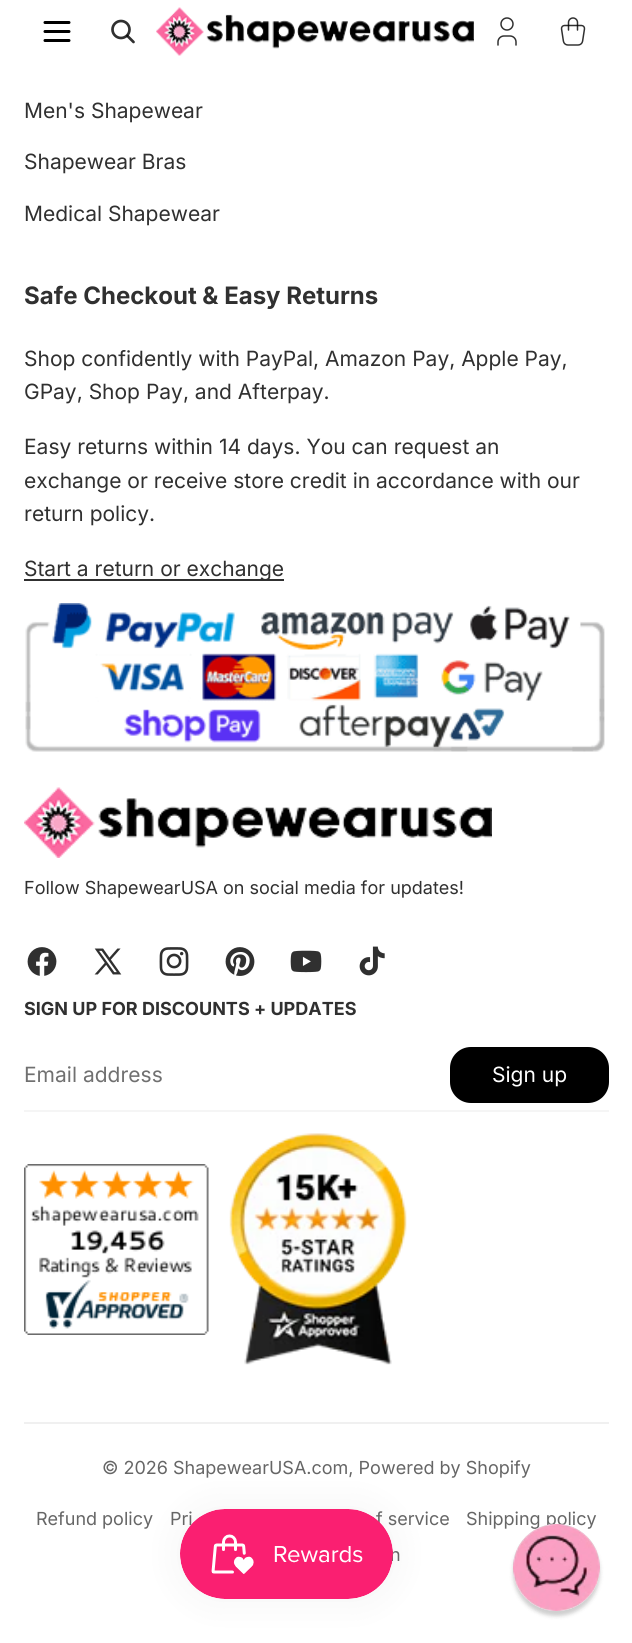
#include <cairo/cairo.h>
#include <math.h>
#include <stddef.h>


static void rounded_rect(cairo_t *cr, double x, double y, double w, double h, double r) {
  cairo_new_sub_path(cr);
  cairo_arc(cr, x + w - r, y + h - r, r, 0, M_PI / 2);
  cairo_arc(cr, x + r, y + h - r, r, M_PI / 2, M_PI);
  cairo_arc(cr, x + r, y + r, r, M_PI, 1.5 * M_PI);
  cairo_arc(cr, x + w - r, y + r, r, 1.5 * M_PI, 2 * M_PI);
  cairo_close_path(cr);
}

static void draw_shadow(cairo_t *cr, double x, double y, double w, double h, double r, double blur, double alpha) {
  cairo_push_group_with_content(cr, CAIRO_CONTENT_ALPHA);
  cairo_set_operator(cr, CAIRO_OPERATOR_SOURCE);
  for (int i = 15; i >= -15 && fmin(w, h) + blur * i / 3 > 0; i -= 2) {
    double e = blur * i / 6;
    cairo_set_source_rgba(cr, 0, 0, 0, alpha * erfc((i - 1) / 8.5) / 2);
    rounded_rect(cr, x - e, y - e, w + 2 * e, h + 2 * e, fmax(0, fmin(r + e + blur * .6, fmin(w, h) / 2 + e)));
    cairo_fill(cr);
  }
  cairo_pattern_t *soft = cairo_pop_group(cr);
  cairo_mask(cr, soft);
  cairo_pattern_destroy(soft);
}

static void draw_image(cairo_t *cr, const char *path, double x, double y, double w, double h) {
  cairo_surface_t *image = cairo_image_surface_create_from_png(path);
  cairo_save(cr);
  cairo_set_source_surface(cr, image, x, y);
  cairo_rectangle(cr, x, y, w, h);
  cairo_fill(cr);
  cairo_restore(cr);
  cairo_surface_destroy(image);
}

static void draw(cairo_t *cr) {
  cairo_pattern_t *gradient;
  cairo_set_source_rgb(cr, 1, 1, 1);
  cairo_paint(cr);
  cairo_new_path(cr);
  cairo_move_to(cr, 45, 22.5);
  cairo_line_to(cr, 69, 22.5);
  cairo_move_to(cr, 45, 31.5);
  cairo_line_to(cr, 69, 31.5);
  cairo_move_to(cr, 45, 40.5);
  cairo_line_to(cr, 69, 40.5);
  cairo_set_source_rgb(cr, 0, 0, 0);
  cairo_set_line_width(cr, 3);
  cairo_set_line_cap(cr, CAIRO_LINE_CAP_ROUND);
  cairo_set_line_join(cr, CAIRO_LINE_JOIN_ROUND);
  cairo_stroke(cr);
  cairo_arc(cr, 121, 29.5, 8.5, 0, 2 * M_PI);
  cairo_set_source_rgb(cr, 48 / 255.0, 48 / 255.0, 48 / 255.0);
  cairo_set_line_width(cr, 2.7);
  cairo_set_line_cap(cr, CAIRO_LINE_CAP_BUTT);
  cairo_set_line_join(cr, CAIRO_LINE_JOIN_MITER);
  cairo_stroke(cr);
  cairo_new_path(cr);
  cairo_move_to(cr, 127.5, 36);
  cairo_line_to(cr, 133.5, 42);
  cairo_set_source_rgba(cr, 0, 0, 0, 0.81);
  cairo_set_line_cap(cr, CAIRO_LINE_CAP_ROUND);
  cairo_set_line_join(cr, CAIRO_LINE_JOIN_ROUND);
  cairo_stroke(cr);
  draw_image(cr, "images/1.png", 156, 7, 318, 49);
  draw_image(cr, "images/2.png", 497, 17, 20, 29);
  draw_image(cr, "images/3.png", 560, 17, 26, 29);
  cairo_set_source_rgb(cr, 48 / 255.0, 48 / 255.0, 48 / 255.0);
  cairo_rectangle(cr, 24, 579, 260, 2);
  cairo_fill(cr);
  draw_image(cr, "images/4.png", 25, 603, 580, 149);
  draw_image(cr, "images/5.png", 24, 787, 468, 71);
  draw_image(cr, "images/6.png", 27, 947, 30, 29);
  draw_image(cr, "images/7.png", 94, 948, 28, 27);
  draw_image(cr, "images/8.png", 159, 947, 30, 29);
  draw_image(cr, "images/9.png", 225, 947, 30, 29);
  draw_image(cr, "images/10.png", 290, 950, 32, 23);
  draw_image(cr, "images/11.png", 359, 946, 26, 30);
  cairo_set_source_rgb(cr, 245 / 255.0, 245 / 255.0, 245 / 255.0);
  cairo_rectangle(cr, 24, 1110, 585, 2);
  cairo_fill(cr);
  cairo_set_source_rgb(cr, 0, 0, 0);
  rounded_rect(cr, 450, 1047, 159, 56, 21);
  cairo_fill(cr);
  draw_image(cr, "images/12.png", 24, 1164, 185, 171);
  draw_image(cr, "images/13.png", 229, 1133, 178, 232);
  cairo_set_source_rgb(cr, 240 / 255.0, 240 / 255.0, 240 / 255.0);
  cairo_rectangle(cr, 24, 1422, 585, 2);
  cairo_fill(cr);
  cairo_set_source_rgb(cr, 0, 0, 0);
  draw_shadow(cr, 180, 1509, 213, 90, 45, 19, 0.05);
  cairo_save(cr);
  cairo_set_fill_rule(cr, CAIRO_FILL_RULE_EVEN_ODD);
  cairo_new_path(cr);
  cairo_move_to(cr, 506, 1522);
  cairo_line_to(cr, 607, 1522);
  cairo_line_to(cr, 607, 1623);
  cairo_line_to(cr, 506, 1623);
  cairo_close_path(cr);
  cairo_move_to(cr, 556.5, 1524);
  cairo_curve_to(cr, 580.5, 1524, 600, 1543.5, 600, 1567.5);
  cairo_curve_to(cr, 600, 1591.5, 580.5, 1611, 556.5, 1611);
  cairo_curve_to(cr, 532.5, 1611, 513, 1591.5, 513, 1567.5);
  cairo_curve_to(cr, 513, 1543.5, 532.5, 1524, 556.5, 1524);
  cairo_close_path(cr);
  cairo_clip(cr);
  cairo_set_source_rgb(cr, 13 / 255.0, 13 / 255.0, 13 / 255.0);
  draw_shadow(cr, 513, 1529, 87, 87, 43.5, 2, 0.2);
  cairo_restore(cr);
  cairo_select_font_face(cr, "Inter", CAIRO_FONT_SLANT_NORMAL, CAIRO_FONT_WEIGHT_NORMAL);
  cairo_set_font_size(cr, 21);
  cairo_set_source_rgb(cr, 48 / 255.0, 48 / 255.0, 48 / 255.0);
  cairo_move_to(cr, 24, 118);
  cairo_show_text(cr, "Men's Shapewear");
  cairo_move_to(cr, 24, 169);
  cairo_show_text(cr, "Shapewear Bras");
  cairo_move_to(cr, 24, 221);
  cairo_show_text(cr, "Medical Shapewear");
  cairo_select_font_face(cr, "Inter", CAIRO_FONT_SLANT_NORMAL, CAIRO_FONT_WEIGHT_BOLD);
  cairo_set_font_size(cr, 24);
  cairo_move_to(cr, 24, 304);
  cairo_show_text(cr, "Safe Checkout & Easy Returns");
  cairo_select_font_face(cr, "Inter", CAIRO_FONT_SLANT_NORMAL, CAIRO_FONT_WEIGHT_NORMAL);
  cairo_set_font_size(cr, 21);
  cairo_move_to(cr, 24, 366);
  cairo_show_text(cr, "Shop confidently with PayPal, Amazon Pay, Apple Pay,");
  cairo_move_to(cr, 24, 399);
  cairo_show_text(cr, "GPay, Shop Pay, and Afterpay.");
  cairo_move_to(cr, 24, 454);
  cairo_show_text(cr, "Easy returns within 14 days. You can request an");
  cairo_move_to(cr, 24, 488);
  cairo_show_text(cr, "exchange or receive store credit in accordance with our");
  cairo_move_to(cr, 24, 521);
  cairo_show_text(cr, "return policy.");
  cairo_move_to(cr, 24, 576);
  cairo_show_text(cr, "Start a return or exchange");
  cairo_set_font_size(cr, 18);
  cairo_move_to(cr, 24, 894);
  cairo_show_text(cr, "Follow ShapewearUSA on social media for updates!");
  cairo_select_font_face(cr, "Inter", CAIRO_FONT_SLANT_NORMAL, CAIRO_FONT_WEIGHT_BOLD);
  cairo_move_to(cr, 24, 1015);
  cairo_show_text(cr, "SIGN UP FOR DISCOUNTS + UPDATES");
  cairo_select_font_face(cr, "Inter", CAIRO_FONT_SLANT_NORMAL, CAIRO_FONT_WEIGHT_NORMAL);
  cairo_set_font_size(cr, 21);
  cairo_set_source_rgb(cr, 112 / 255.0, 112 / 255.0, 112 / 255.0);
  cairo_move_to(cr, 24, 1082);
  cairo_show_text(cr, "Email address");
  cairo_set_source_rgb(cr, 1, 1, 1);
  cairo_move_to(cr, 492, 1082);
  cairo_show_text(cr, "Sign up");
  cairo_set_font_size(cr, 18);
  cairo_set_source_rgb(cr, 102 / 255.0, 102 / 255.0, 102 / 255.0);
  cairo_move_to(cr, 102, 1474);
  cairo_show_text(cr, "© 2026 ShapewearUSA.com, Powered by Shopify");
  cairo_move_to(cr, 36, 1525);
  cairo_show_text(cr, "Refund policy");
  cairo_move_to(cr, 170, 1525);
  cairo_show_text(cr, "Pri");
  cairo_move_to(cr, 376, 1525);
  cairo_show_text(cr, "f service");
  cairo_move_to(cr, 466, 1525);
  cairo_show_text(cr, "Shipping policy");
  cairo_move_to(cr, 390, 1561);
  cairo_show_text(cr, "n");
  draw_image(cr, "images/14.png", 180, 1509, 213, 90);
  gradient = cairo_pattern_create_linear(513, 1524, 600, 1611);
  cairo_pattern_add_color_stop_rgba(gradient, 0, 186 / 255.0, 186 / 255.0, 186 / 255.0, 0.95);
  cairo_pattern_add_color_stop_rgba(gradient, 1, 207 / 255.0, 207 / 255.0, 207 / 255.0, 0.95);
  cairo_set_source(cr, gradient);
  cairo_pattern_destroy(gradient);
  cairo_arc(cr, 556.5, 1567.5, 43.5, 0, 2 * M_PI);
  cairo_fill(cr);
  draw_image(cr, "images/15.png", 513, 1524, 87, 87);
}

int main(void) {
  cairo_surface_t *surface = cairo_image_surface_create(CAIRO_FORMAT_RGB24, 632, 1643);
  cairo_t *cr = cairo_create(surface);
  cairo_font_options_t *options = cairo_font_options_create();
  cairo_font_options_set_hint_metrics(options, CAIRO_HINT_METRICS_OFF);
  cairo_font_options_set_hint_style(options, CAIRO_HINT_STYLE_NONE);
  cairo_set_font_options(cr, options);
  cairo_set_miter_limit(cr, 4);
  draw(cr);
  cairo_surface_write_to_png(surface, "out.png");
  cairo_font_options_destroy(options);
  cairo_destroy(cr);
  cairo_surface_destroy(surface);
  return 0;
}
